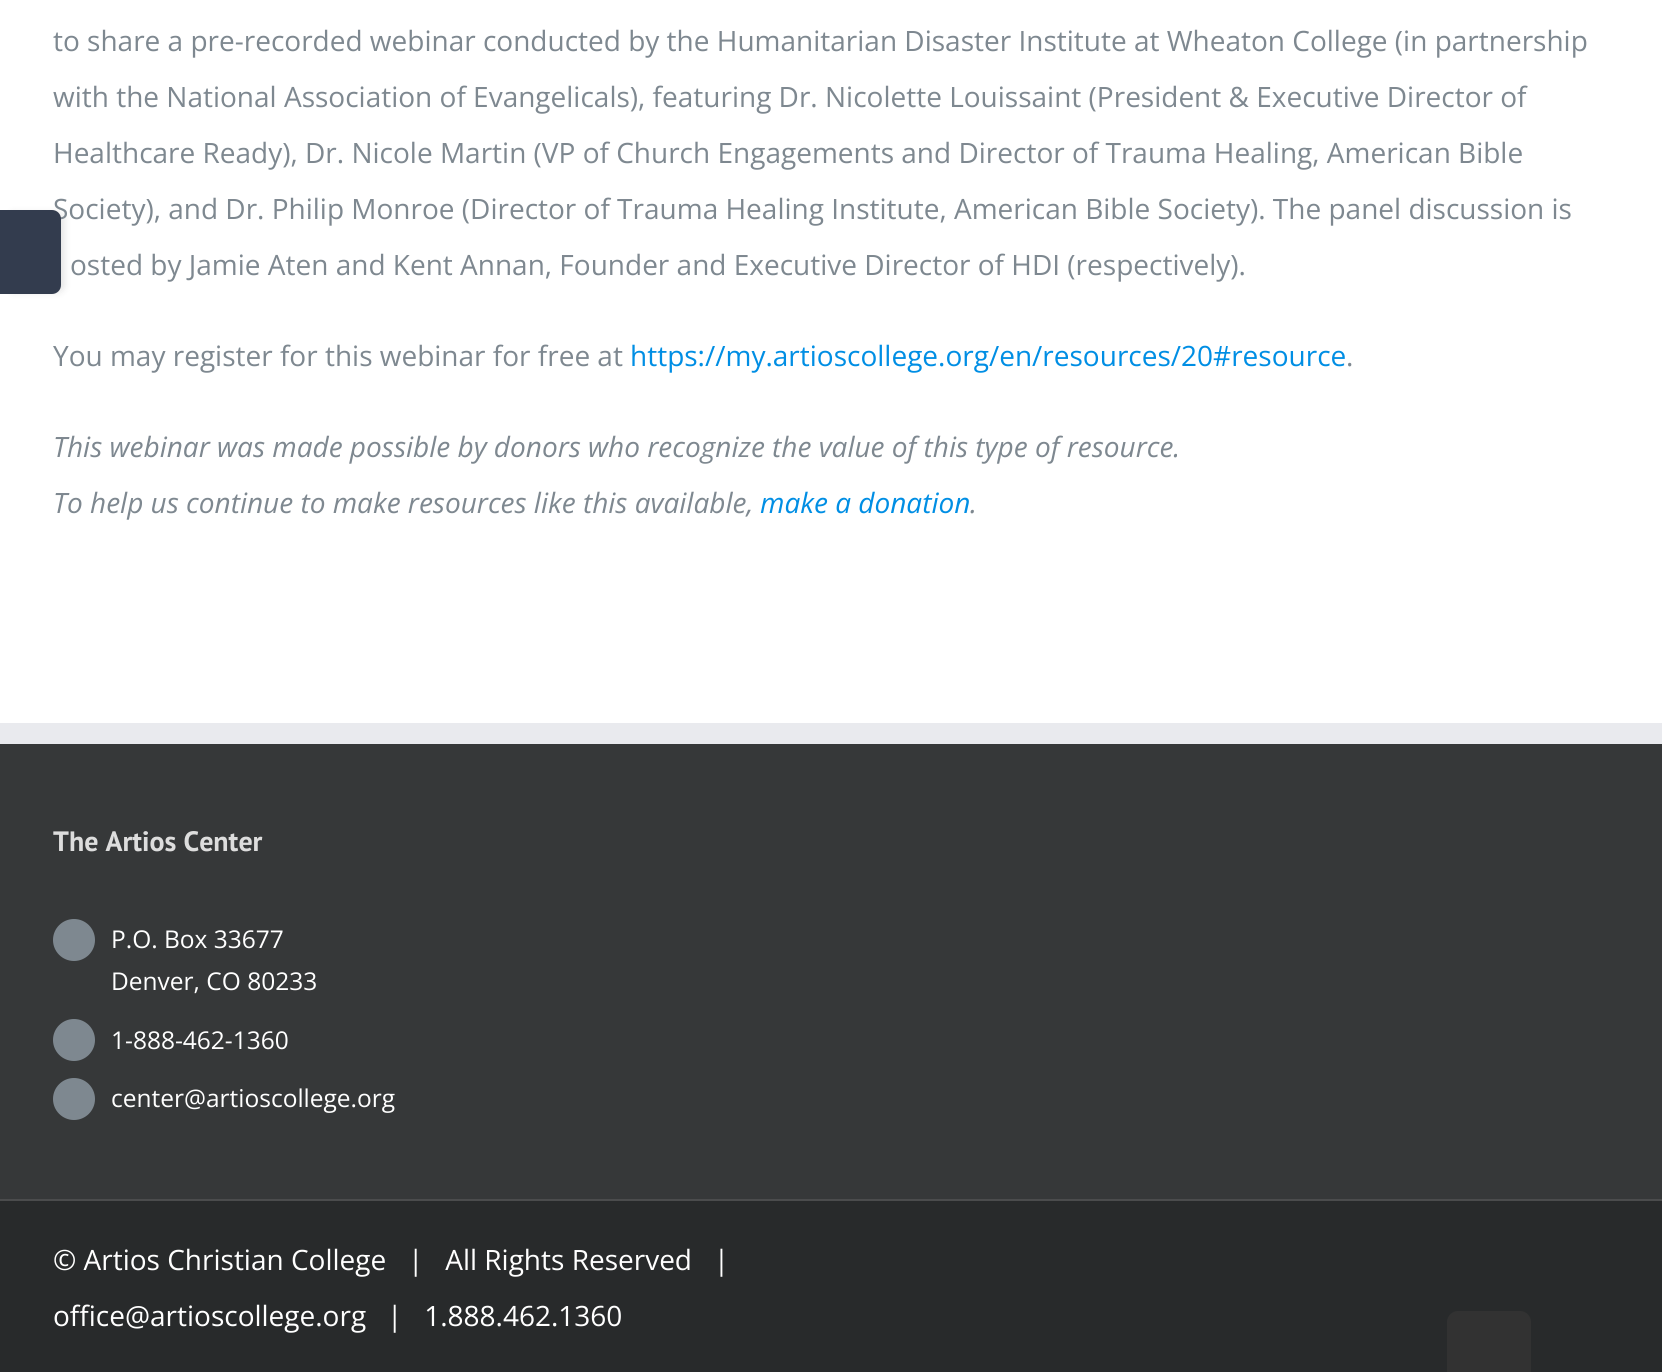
#include <cairo/cairo.h>
#include <math.h>
#include <stddef.h>


static void rounded_rect(cairo_t *cr, double x, double y, double w, double h, double r) {
  cairo_new_sub_path(cr);
  cairo_arc(cr, x + w - r, y + h - r, r, 0, M_PI / 2);
  cairo_arc(cr, x + r, y + h - r, r, M_PI / 2, M_PI);
  cairo_arc(cr, x + r, y + r, r, M_PI, 1.5 * M_PI);
  cairo_arc(cr, x + w - r, y + r, r, 1.5 * M_PI, 2 * M_PI);
  cairo_close_path(cr);
}

static void draw_shadow(cairo_t *cr, double x, double y, double w, double h, double r, double blur, double alpha) {
  cairo_push_group_with_content(cr, CAIRO_CONTENT_ALPHA);
  cairo_set_operator(cr, CAIRO_OPERATOR_SOURCE);
  for (int i = 15; i >= -15 && fmin(w, h) + blur * i / 3 > 0; i -= 2) {
    double e = blur * i / 6;
    cairo_set_source_rgba(cr, 0, 0, 0, alpha * erfc((i - 1) / 8.5) / 2);
    rounded_rect(cr, x - e, y - e, w + 2 * e, h + 2 * e, fmax(0, fmin(r + e + blur * .6, fmin(w, h) / 2 + e)));
    cairo_fill(cr);
  }
  cairo_pattern_t *soft = cairo_pop_group(cr);
  cairo_mask(cr, soft);
  cairo_pattern_destroy(soft);
}

static void draw(cairo_t *cr) {
  cairo_set_source_rgb(cr, 1, 1, 1);
  cairo_paint(cr);
  cairo_set_source_rgb(cr, 0, 0, 0);
  draw_shadow(cr, 9, 214, 54, 77, 5, 4.5, 0.14);
  cairo_set_source_rgb(cr, 54 / 255.0, 56 / 255.0, 57 / 255.0);
  cairo_rectangle(cr, 0, 744, 1662, 455);
  cairo_fill(cr);
  cairo_set_source_rgb(cr, 233 / 255.0, 234 / 255.0, 238 / 255.0);
  cairo_rectangle(cr, 0, 723, 1662, 21);
  cairo_fill(cr);
  cairo_set_source_rgb(cr, 126 / 255.0, 136 / 255.0, 144 / 255.0);
  cairo_arc(cr, 74, 940, 21, 0, 2 * M_PI);
  cairo_fill(cr);
  cairo_arc(cr, 74, 1040, 21, 0, 2 * M_PI);
  cairo_fill(cr);
  cairo_arc(cr, 74, 1099, 21, 0, 2 * M_PI);
  cairo_fill(cr);
  cairo_set_source_rgb(cr, 40 / 255.0, 42 / 255.0, 43 / 255.0);
  cairo_rectangle(cr, 0, 1201, 1662, 171);
  cairo_fill(cr);
  cairo_set_source_rgb(cr, 75 / 255.0, 76 / 255.0, 77 / 255.0);
  cairo_rectangle(cr, 0, 1199, 1662, 2);
  cairo_fill(cr);
  cairo_set_source_rgb(cr, 50 / 255.0, 50 / 255.0, 50 / 255.0);
  cairo_new_path(cr);
  cairo_move_to(cr, 1458, 1311);
  cairo_line_to(cr, 1520, 1311);
  cairo_curve_to(cr, 1526, 1311, 1531, 1316, 1531, 1322);
  cairo_line_to(cr, 1531, 1372);
  cairo_line_to(cr, 1447, 1372);
  cairo_line_to(cr, 1447, 1322);
  cairo_curve_to(cr, 1447, 1316, 1452, 1311, 1458, 1311);
  cairo_close_path(cr);
  cairo_fill(cr);
  cairo_select_font_face(cr, "Open Sans", CAIRO_FONT_SLANT_NORMAL, CAIRO_FONT_WEIGHT_NORMAL);
  cairo_set_font_size(cr, 28);
  cairo_set_source_rgb(cr, 126 / 255.0, 136 / 255.0, 144 / 255.0);
  cairo_move_to(cr, 53, 51);
  cairo_show_text(cr, "to share a pre-recorded webinar conducted by the Humanitarian Disaster Institute at Wheaton College (in partnership");
  cairo_move_to(cr, 53, 107);
  cairo_show_text(cr, "with the National Association of Evangelicals), featuring Dr. Nicolette Louissaint (President & Executive Director of");
  cairo_move_to(cr, 53, 163);
  cairo_show_text(cr, "Healthcare Ready), Dr. Nicole Martin (VP of Church Engagements and Director of Trauma Healing, American Bible");
  cairo_move_to(cr, 53, 219);
  cairo_show_text(cr, "Society), and Dr. Philip Monroe (Director of Trauma Healing Institute, American Bible Society). The panel discussion is");
  cairo_set_source_rgb(cr, 51 / 255.0, 60 / 255.0, 78 / 255.0);
  cairo_new_path(cr);
  cairo_move_to(cr, 0, 210);
  cairo_line_to(cr, 52, 210);
  cairo_curve_to(cr, 57, 210, 61, 214, 61, 219);
  cairo_line_to(cr, 61, 285);
  cairo_curve_to(cr, 61, 290, 57, 294, 52, 294);
  cairo_line_to(cr, 0, 294);
  cairo_close_path(cr);
  cairo_fill(cr);
  cairo_set_source_rgb(cr, 126 / 255.0, 136 / 255.0, 144 / 255.0);
  cairo_move_to(cr, 70, 275);
  cairo_show_text(cr, "osted by Jamie Aten and Kent Annan, Founder and Executive Director of HDI (respectively).");
  cairo_move_to(cr, 53, 366);
  cairo_show_text(cr, "You may register for this webinar for free at");
  cairo_set_source_rgb(cr, 0, 142 / 255.0, 228 / 255.0);
  cairo_move_to(cr, 630, 366);
  cairo_show_text(cr, "https://my.artioscollege.org/en/resources/20#resource");
  cairo_set_source_rgb(cr, 126 / 255.0, 136 / 255.0, 144 / 255.0);
  cairo_move_to(cr, 1346, 366);
  cairo_show_text(cr, ".");
  cairo_select_font_face(cr, "Open Sans", CAIRO_FONT_SLANT_ITALIC, CAIRO_FONT_WEIGHT_NORMAL);
  cairo_move_to(cr, 53, 457);
  cairo_show_text(cr, "This webinar was made possible by donors who recognize the value of this type of resource.");
  cairo_move_to(cr, 53, 513);
  cairo_show_text(cr, "To help us continue to make resources like this available,");
  cairo_set_source_rgb(cr, 0, 142 / 255.0, 228 / 255.0);
  cairo_move_to(cr, 760, 513);
  cairo_show_text(cr, "make a donation");
  cairo_set_source_rgb(cr, 126 / 255.0, 136 / 255.0, 144 / 255.0);
  cairo_move_to(cr, 970, 513);
  cairo_show_text(cr, ".");
  cairo_select_font_face(cr, "PT Sans", CAIRO_FONT_SLANT_NORMAL, CAIRO_FONT_WEIGHT_BOLD);
  cairo_set_source_rgb(cr, 221 / 255.0, 221 / 255.0, 221 / 255.0);
  cairo_move_to(cr, 53, 851);
  cairo_show_text(cr, "The Artios Center");
  cairo_select_font_face(cr, "Open Sans", CAIRO_FONT_SLANT_NORMAL, CAIRO_FONT_WEIGHT_NORMAL);
  cairo_set_font_size(cr, 24.5);
  cairo_set_source_rgb(cr, 1, 1, 1);
  cairo_move_to(cr, 111, 948);
  cairo_show_text(cr, "P.O. Box 33677");
  cairo_move_to(cr, 111, 990);
  cairo_show_text(cr, "Denver, CO 80233");
  cairo_move_to(cr, 111, 1049);
  cairo_show_text(cr, "1-888-462-1360");
  cairo_move_to(cr, 111, 1107);
  cairo_show_text(cr, "center@artioscollege.org");
  cairo_set_font_size(cr, 28);
  cairo_move_to(cr, 53, 1270);
  cairo_show_text(cr, "© Artios Christian College");
  cairo_move_to(cr, 408, 1270);
  cairo_show_text(cr, "|   All Rights Reserved   |");
  cairo_move_to(cr, 53, 1326);
  cairo_show_text(cr, "office@artioscollege.org");
  cairo_move_to(cr, 387, 1326);
  cairo_show_text(cr, "|   1.888.462.1360");
}

int main(void) {
  cairo_surface_t *surface = cairo_image_surface_create(CAIRO_FORMAT_RGB24, 1662, 1372);
  cairo_t *cr = cairo_create(surface);
  cairo_font_options_t *options = cairo_font_options_create();
  cairo_font_options_set_hint_metrics(options, CAIRO_HINT_METRICS_OFF);
  cairo_font_options_set_hint_style(options, CAIRO_HINT_STYLE_NONE);
  cairo_set_font_options(cr, options);
  cairo_set_miter_limit(cr, 4);
  draw(cr);
  cairo_surface_write_to_png(surface, "out.png");
  cairo_font_options_destroy(options);
  cairo_destroy(cr);
  cairo_surface_destroy(surface);
  return 0;
}
